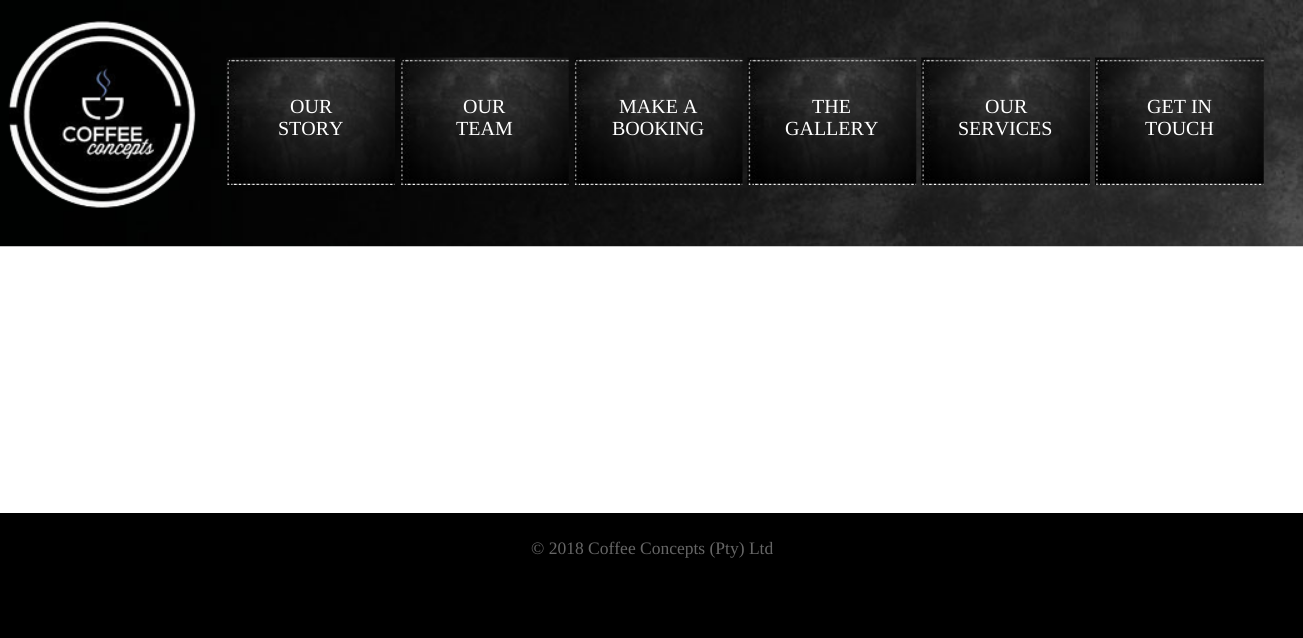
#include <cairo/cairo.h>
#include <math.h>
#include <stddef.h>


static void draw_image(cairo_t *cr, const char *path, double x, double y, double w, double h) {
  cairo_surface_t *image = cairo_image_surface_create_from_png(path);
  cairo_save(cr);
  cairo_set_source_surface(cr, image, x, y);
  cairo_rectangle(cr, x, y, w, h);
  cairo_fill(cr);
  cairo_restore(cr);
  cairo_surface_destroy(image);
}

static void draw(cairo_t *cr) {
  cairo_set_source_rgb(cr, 1, 1, 1);
  cairo_paint(cr);
  draw_image(cr, "images/1.png", 0, 0, 1303, 247);
  draw_image(cr, "images/2.png", 8, 21, 188, 187);
  draw_image(cr, "images/3.png", 226, 57, 169, 128);
  draw_image(cr, "images/4.png", 400, 57, 169, 128);
  draw_image(cr, "images/5.png", 574, 57, 169, 128);
  draw_image(cr, "images/6.png", 747, 57, 170, 128);
  draw_image(cr, "images/7.png", 921, 57, 169, 128);
  draw_image(cr, "images/8.png", 1095, 57, 169, 128);
  cairo_set_source_rgb(cr, 0, 0, 0);
  cairo_rectangle(cr, 0, 513, 1303, 125);
  cairo_fill(cr);
  cairo_select_font_face(cr, "Liberation Serif", CAIRO_FONT_SLANT_NORMAL, CAIRO_FONT_WEIGHT_NORMAL);
  cairo_set_font_size(cr, 20);
  cairo_set_source_rgb(cr, 1, 1, 1);
  cairo_move_to(cr, 290, 113);
  cairo_show_text(cr, "OUR");
  cairo_move_to(cr, 278, 135);
  cairo_show_text(cr, "STORY");
  cairo_move_to(cr, 463, 113);
  cairo_show_text(cr, "OUR");
  cairo_move_to(cr, 456, 135);
  cairo_show_text(cr, "TEAM");
  cairo_move_to(cr, 619, 113);
  cairo_show_text(cr, "MAKE A");
  cairo_move_to(cr, 612, 135);
  cairo_show_text(cr, "BOOKING");
  cairo_move_to(cr, 812, 113);
  cairo_show_text(cr, "THE");
  cairo_move_to(cr, 785, 135);
  cairo_show_text(cr, "GALLERY");
  cairo_move_to(cr, 985, 113);
  cairo_show_text(cr, "OUR");
  cairo_move_to(cr, 958, 135);
  cairo_show_text(cr, "SERVICES");
  cairo_move_to(cr, 1147, 113);
  cairo_show_text(cr, "GET IN");
  cairo_move_to(cr, 1145, 135);
  cairo_show_text(cr, "TOUCH");
  cairo_set_font_size(cr, 17.5);
  cairo_set_source_rgb(cr, 102 / 255.0, 102 / 255.0, 102 / 255.0);
  cairo_move_to(cr, 531, 554);
  cairo_show_text(cr, "© 2018 Coffee Concepts (Pty) Ltd");
}

int main(void) {
  cairo_surface_t *surface = cairo_image_surface_create(CAIRO_FORMAT_RGB24, 1303, 638);
  cairo_t *cr = cairo_create(surface);
  cairo_font_options_t *options = cairo_font_options_create();
  cairo_font_options_set_hint_metrics(options, CAIRO_HINT_METRICS_OFF);
  cairo_font_options_set_hint_style(options, CAIRO_HINT_STYLE_NONE);
  cairo_set_font_options(cr, options);
  cairo_set_miter_limit(cr, 4);
  draw(cr);
  cairo_surface_write_to_png(surface, "out.png");
  cairo_font_options_destroy(options);
  cairo_destroy(cr);
  cairo_surface_destroy(surface);
  return 0;
}
